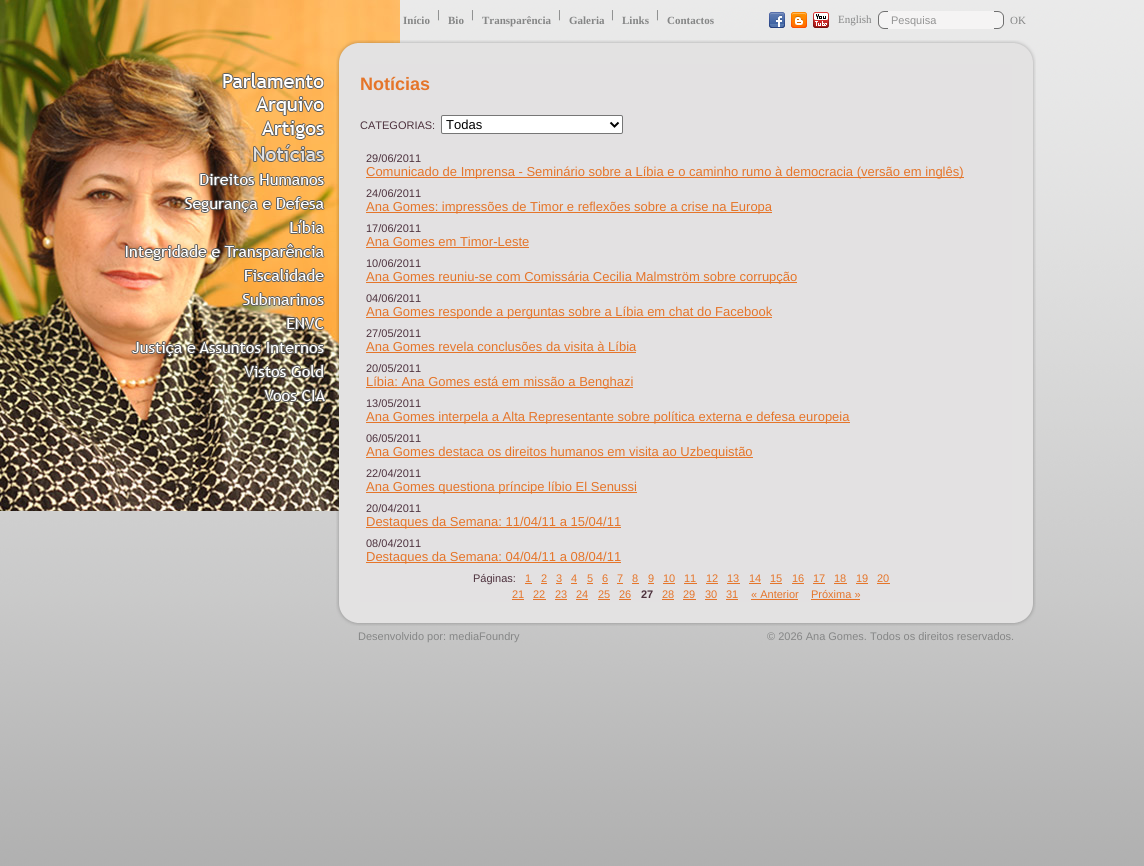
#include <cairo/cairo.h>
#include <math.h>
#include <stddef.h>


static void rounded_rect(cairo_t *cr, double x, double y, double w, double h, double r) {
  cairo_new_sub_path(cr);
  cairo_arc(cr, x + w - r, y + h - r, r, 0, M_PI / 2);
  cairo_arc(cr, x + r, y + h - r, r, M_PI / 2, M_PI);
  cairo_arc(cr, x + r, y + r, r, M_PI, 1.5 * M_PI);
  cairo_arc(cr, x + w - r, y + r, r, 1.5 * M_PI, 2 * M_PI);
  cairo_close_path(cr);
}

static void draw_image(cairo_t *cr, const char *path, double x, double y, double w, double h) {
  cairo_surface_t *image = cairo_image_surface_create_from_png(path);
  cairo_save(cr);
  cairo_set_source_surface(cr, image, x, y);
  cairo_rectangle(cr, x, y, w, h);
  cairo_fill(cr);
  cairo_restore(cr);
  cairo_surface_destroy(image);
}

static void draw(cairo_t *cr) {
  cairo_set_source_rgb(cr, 1, 1, 1);
  cairo_paint(cr);
  draw_image(cr, "images/1.png", 0, 0, 1144, 866);
  draw_image(cr, "images/2.png", 0, 0, 400, 511);
  draw_image(cr, "images/3.png", 769, 12, 16, 16);
  draw_image(cr, "images/4.png", 791, 12, 16, 16);
  draw_image(cr, "images/5.png", 813, 12, 16, 16);
  draw_image(cr, "images/6.png", 878, 11, 10, 18);
  cairo_set_source_rgb(cr, 245 / 255.0, 244 / 255.0, 244 / 255.0);
  cairo_rectangle(cr, 888, 11, 106, 18);
  cairo_fill(cr);
  draw_image(cr, "images/7.png", 994, 11, 10, 18);
  draw_image(cr, "images/8.png", 222, 72, 102, 17);
  draw_image(cr, "images/9.png", 255, 96, 69, 20);
  draw_image(cr, "images/10.png", 261, 120, 64, 20);
  draw_image(cr, "images/11.png", 253, 144, 72, 18);
  draw_image(cr, "images/12.png", 199, 173, 126, 13);
  draw_image(cr, "images/13.png", 184, 196, 141, 17);
  draw_image(cr, "images/14.png", 289, 219, 36, 15);
  draw_image(cr, "images/15.png", 124, 243, 201, 18);
  draw_image(cr, "images/16.png", 244, 268, 81, 14);
  draw_image(cr, "images/17.png", 242, 292, 83, 14);
  draw_image(cr, "images/18.png", 286, 317, 39, 13);
  draw_image(cr, "images/19.png", 131, 341, 194, 16);
  draw_image(cr, "images/20.png", 243, 364, 81, 14);
  draw_image(cr, "images/21.png", 263, 389, 63, 13);
  draw_image(cr, "images/22.png", 336, 40, 24, 24);
  draw_image(cr, "images/23.png", 360, 40, 652, 24);
  draw_image(cr, "images/24.png", 1012, 40, 24, 24);
  draw_image(cr, "images/25.png", 336, 64, 24, 538);
  cairo_set_source_rgb(cr, 227 / 255.0, 225 / 255.0, 226 / 255.0);
  cairo_rectangle(cr, 360, 64, 652, 538);
  cairo_fill(cr);
  cairo_set_source_rgb(cr, 1, 1, 1);
  rounded_rect(cr, 441.5, 115.5, 181, 18, 1.5);
  cairo_fill_preserve(cr);
  cairo_set_source_rgb(cr, 118 / 255.0, 118 / 255.0, 118 / 255.0);
  cairo_set_line_width(cr, 1);
  cairo_stroke(cr);
  cairo_new_path(cr);
  cairo_move_to(cr, 610.5, 122.5);
  cairo_line_to(cr, 614.5, 126.5);
  cairo_line_to(cr, 618.5, 122.5);
  cairo_set_source_rgb(cr, 0, 0, 0);
  cairo_set_line_width(cr, 2);
  cairo_stroke(cr);
  cairo_set_source_rgb(cr, 229 / 255.0, 117 / 255.0, 42 / 255.0);
  cairo_rectangle(cr, 366, 177, 598, 1);
  cairo_fill(cr);
  cairo_rectangle(cr, 366, 212, 406, 1);
  cairo_fill(cr);
  cairo_rectangle(cr, 366, 247, 163, 1);
  cairo_fill(cr);
  cairo_rectangle(cr, 366, 282, 431, 1);
  cairo_fill(cr);
  cairo_rectangle(cr, 366, 317, 406, 1);
  cairo_fill(cr);
  cairo_rectangle(cr, 366, 352, 270, 1);
  cairo_fill(cr);
  cairo_rectangle(cr, 366, 387, 267, 1);
  cairo_fill(cr);
  cairo_rectangle(cr, 366, 422, 484, 1);
  cairo_fill(cr);
  cairo_rectangle(cr, 366, 457, 387, 1);
  cairo_fill(cr);
  cairo_rectangle(cr, 366, 492, 271, 1);
  cairo_fill(cr);
  cairo_rectangle(cr, 366, 527, 255, 1);
  cairo_fill(cr);
  cairo_rectangle(cr, 366, 562, 255, 1);
  cairo_fill(cr);
  cairo_rectangle(cr, 525, 583, 7, 1);
  cairo_fill(cr);
  cairo_rectangle(cr, 541, 583, 6, 1);
  cairo_fill(cr);
  cairo_rectangle(cr, 556, 583, 6, 1);
  cairo_fill(cr);
  cairo_rectangle(cr, 571, 583, 6, 1);
  cairo_fill(cr);
  cairo_rectangle(cr, 587, 583, 6, 1);
  cairo_fill(cr);
  cairo_rectangle(cr, 602, 583, 6, 1);
  cairo_fill(cr);
  cairo_rectangle(cr, 617, 583, 6, 1);
  cairo_fill(cr);
  cairo_rectangle(cr, 632, 583, 7, 1);
  cairo_fill(cr);
  cairo_rectangle(cr, 648, 583, 6, 1);
  cairo_fill(cr);
  cairo_rectangle(cr, 663, 583, 12, 1);
  cairo_fill(cr);
  cairo_rectangle(cr, 684, 583, 13, 1);
  cairo_fill(cr);
  cairo_rectangle(cr, 706, 583, 12, 1);
  cairo_fill(cr);
  cairo_rectangle(cr, 727, 583, 13, 1);
  cairo_fill(cr);
  cairo_rectangle(cr, 749, 583, 12, 1);
  cairo_fill(cr);
  cairo_rectangle(cr, 770, 583, 12, 1);
  cairo_fill(cr);
  cairo_rectangle(cr, 792, 583, 12, 1);
  cairo_fill(cr);
  cairo_rectangle(cr, 813, 583, 12, 1);
  cairo_fill(cr);
  cairo_rectangle(cr, 834, 583, 13, 1);
  cairo_fill(cr);
  cairo_rectangle(cr, 856, 583, 12, 1);
  cairo_fill(cr);
  cairo_rectangle(cr, 877, 583, 13, 1);
  cairo_fill(cr);
  cairo_rectangle(cr, 512, 599, 12, 1);
  cairo_fill(cr);
  cairo_rectangle(cr, 533, 599, 13, 1);
  cairo_fill(cr);
  cairo_rectangle(cr, 555, 599, 12, 1);
  cairo_fill(cr);
  cairo_rectangle(cr, 576, 599, 12, 1);
  cairo_fill(cr);
  cairo_rectangle(cr, 598, 599, 12, 1);
  cairo_fill(cr);
  cairo_rectangle(cr, 619, 599, 12, 1);
  cairo_fill(cr);
  cairo_rectangle(cr, 662, 599, 12, 1);
  cairo_fill(cr);
  cairo_rectangle(cr, 683, 599, 13, 1);
  cairo_fill(cr);
  cairo_rectangle(cr, 705, 599, 12, 1);
  cairo_fill(cr);
  cairo_rectangle(cr, 726, 599, 12, 1);
  cairo_fill(cr);
  cairo_rectangle(cr, 751, 599, 47, 1);
  cairo_fill(cr);
  cairo_rectangle(cr, 811, 599, 49, 1);
  cairo_fill(cr);
  draw_image(cr, "images/26.png", 1012, 64, 24, 538);
  draw_image(cr, "images/27.png", 336, 602, 24, 24);
  draw_image(cr, "images/28.png", 360, 602, 652, 24);
  draw_image(cr, "images/29.png", 1012, 602, 24, 24);
  cairo_select_font_face(cr, "Liberation Serif", CAIRO_FONT_SLANT_NORMAL, CAIRO_FONT_WEIGHT_BOLD);
  cairo_set_font_size(cr, 11);
  cairo_set_source_rgb(cr, 133 / 255.0, 134 / 255.0, 134 / 255.0);
  cairo_move_to(cr, 403, 24);
  cairo_show_text(cr, "Início");
  cairo_select_font_face(cr, "Liberation Sans", CAIRO_FONT_SLANT_NORMAL, CAIRO_FONT_WEIGHT_NORMAL);
  cairo_move_to(cr, 437, 18);
  cairo_show_text(cr, "|");
  cairo_select_font_face(cr, "Liberation Serif", CAIRO_FONT_SLANT_NORMAL, CAIRO_FONT_WEIGHT_BOLD);
  cairo_move_to(cr, 448, 24);
  cairo_show_text(cr, "Bio");
  cairo_select_font_face(cr, "Liberation Sans", CAIRO_FONT_SLANT_NORMAL, CAIRO_FONT_WEIGHT_NORMAL);
  cairo_move_to(cr, 471, 18);
  cairo_show_text(cr, "|");
  cairo_select_font_face(cr, "Liberation Serif", CAIRO_FONT_SLANT_NORMAL, CAIRO_FONT_WEIGHT_BOLD);
  cairo_move_to(cr, 482, 24);
  cairo_show_text(cr, "Transparência");
  cairo_select_font_face(cr, "Liberation Sans", CAIRO_FONT_SLANT_NORMAL, CAIRO_FONT_WEIGHT_NORMAL);
  cairo_move_to(cr, 558, 18);
  cairo_show_text(cr, "|");
  cairo_select_font_face(cr, "Liberation Serif", CAIRO_FONT_SLANT_NORMAL, CAIRO_FONT_WEIGHT_BOLD);
  cairo_move_to(cr, 569, 24);
  cairo_show_text(cr, "Galeria");
  cairo_select_font_face(cr, "Liberation Sans", CAIRO_FONT_SLANT_NORMAL, CAIRO_FONT_WEIGHT_NORMAL);
  cairo_move_to(cr, 611, 18);
  cairo_show_text(cr, "|");
  cairo_select_font_face(cr, "Liberation Serif", CAIRO_FONT_SLANT_NORMAL, CAIRO_FONT_WEIGHT_BOLD);
  cairo_move_to(cr, 622, 24);
  cairo_show_text(cr, "Links");
  cairo_select_font_face(cr, "Liberation Sans", CAIRO_FONT_SLANT_NORMAL, CAIRO_FONT_WEIGHT_NORMAL);
  cairo_move_to(cr, 656, 18);
  cairo_show_text(cr, "|");
  cairo_select_font_face(cr, "Liberation Serif", CAIRO_FONT_SLANT_NORMAL, CAIRO_FONT_WEIGHT_BOLD);
  cairo_move_to(cr, 667, 24);
  cairo_show_text(cr, "Contactos");
  cairo_select_font_face(cr, "Liberation Serif", CAIRO_FONT_SLANT_NORMAL, CAIRO_FONT_WEIGHT_NORMAL);
  cairo_move_to(cr, 838, 23);
  cairo_show_text(cr, "English");
  cairo_select_font_face(cr, "Liberation Sans", CAIRO_FONT_SLANT_NORMAL, CAIRO_FONT_WEIGHT_NORMAL);
  cairo_set_source_rgb(cr, 147 / 255.0, 147 / 255.0, 147 / 255.0);
  cairo_move_to(cr, 891, 24);
  cairo_show_text(cr, "Pesquisa");
  cairo_select_font_face(cr, "Liberation Serif", CAIRO_FONT_SLANT_NORMAL, CAIRO_FONT_WEIGHT_NORMAL);
  cairo_set_source_rgb(cr, 133 / 255.0, 134 / 255.0, 134 / 255.0);
  cairo_move_to(cr, 1010, 24);
  cairo_show_text(cr, "OK");
  cairo_select_font_face(cr, "Liberation Sans", CAIRO_FONT_SLANT_NORMAL, CAIRO_FONT_WEIGHT_BOLD);
  cairo_set_font_size(cr, 18);
  cairo_set_source_rgb(cr, 229 / 255.0, 117 / 255.0, 42 / 255.0);
  cairo_move_to(cr, 360, 90);
  cairo_show_text(cr, "Notícias");
  cairo_select_font_face(cr, "Liberation Sans", CAIRO_FONT_SLANT_NORMAL, CAIRO_FONT_WEIGHT_NORMAL);
  cairo_set_font_size(cr, 11);
  cairo_set_source_rgb(cr, 77 / 255.0, 49 / 255.0, 61 / 255.0);
  cairo_move_to(cr, 360, 129);
  cairo_show_text(cr, "CATEGORIAS:");
  cairo_set_font_size(cr, 13);
  cairo_set_source_rgb(cr, 0, 0, 0);
  cairo_move_to(cr, 446, 129);
  cairo_show_text(cr, "Todas");
  cairo_set_font_size(cr, 11);
  cairo_set_source_rgb(cr, 77 / 255.0, 49 / 255.0, 61 / 255.0);
  cairo_move_to(cr, 366, 162);
  cairo_show_text(cr, "29/06/2011");
  cairo_set_font_size(cr, 13);
  cairo_set_source_rgb(cr, 229 / 255.0, 117 / 255.0, 42 / 255.0);
  cairo_move_to(cr, 366, 176);
  cairo_show_text(cr, "Comunicado de Imprensa - Seminário sobre a Líbia e o caminho rumo à democracia (versão em inglês)");
  cairo_set_font_size(cr, 11);
  cairo_set_source_rgb(cr, 77 / 255.0, 49 / 255.0, 61 / 255.0);
  cairo_move_to(cr, 366, 197);
  cairo_show_text(cr, "24/06/2011");
  cairo_set_font_size(cr, 13);
  cairo_set_source_rgb(cr, 229 / 255.0, 117 / 255.0, 42 / 255.0);
  cairo_move_to(cr, 366, 211);
  cairo_show_text(cr, "Ana Gomes: impressões de Timor e reflexões sobre a crise na Europa");
  cairo_set_font_size(cr, 11);
  cairo_set_source_rgb(cr, 77 / 255.0, 49 / 255.0, 61 / 255.0);
  cairo_move_to(cr, 366, 232);
  cairo_show_text(cr, "17/06/2011");
  cairo_set_font_size(cr, 13);
  cairo_set_source_rgb(cr, 229 / 255.0, 117 / 255.0, 42 / 255.0);
  cairo_move_to(cr, 366, 246);
  cairo_show_text(cr, "Ana Gomes em Timor-Leste");
  cairo_set_font_size(cr, 11);
  cairo_set_source_rgb(cr, 77 / 255.0, 49 / 255.0, 61 / 255.0);
  cairo_move_to(cr, 366, 267);
  cairo_show_text(cr, "10/06/2011");
  cairo_set_font_size(cr, 13);
  cairo_set_source_rgb(cr, 229 / 255.0, 117 / 255.0, 42 / 255.0);
  cairo_move_to(cr, 366, 281);
  cairo_show_text(cr, "Ana Gomes reuniu-se com Comissária Cecilia Malmström sobre corrupção");
  cairo_set_font_size(cr, 11);
  cairo_set_source_rgb(cr, 77 / 255.0, 49 / 255.0, 61 / 255.0);
  cairo_move_to(cr, 366, 302);
  cairo_show_text(cr, "04/06/2011");
  cairo_set_font_size(cr, 13);
  cairo_set_source_rgb(cr, 229 / 255.0, 117 / 255.0, 42 / 255.0);
  cairo_move_to(cr, 366, 316);
  cairo_show_text(cr, "Ana Gomes responde a perguntas sobre a Líbia em chat do Facebook");
  cairo_set_font_size(cr, 11);
  cairo_set_source_rgb(cr, 77 / 255.0, 49 / 255.0, 61 / 255.0);
  cairo_move_to(cr, 366, 337);
  cairo_show_text(cr, "27/05/2011");
  cairo_set_font_size(cr, 13);
  cairo_set_source_rgb(cr, 229 / 255.0, 117 / 255.0, 42 / 255.0);
  cairo_move_to(cr, 366, 351);
  cairo_show_text(cr, "Ana Gomes revela conclusões da visita à Líbia");
  cairo_set_font_size(cr, 11);
  cairo_set_source_rgb(cr, 77 / 255.0, 49 / 255.0, 61 / 255.0);
  cairo_move_to(cr, 366, 372);
  cairo_show_text(cr, "20/05/2011");
  cairo_set_font_size(cr, 13);
  cairo_set_source_rgb(cr, 229 / 255.0, 117 / 255.0, 42 / 255.0);
  cairo_move_to(cr, 366, 386);
  cairo_show_text(cr, "Líbia: Ana Gomes está em missão a Benghazi");
  cairo_set_font_size(cr, 11);
  cairo_set_source_rgb(cr, 77 / 255.0, 49 / 255.0, 61 / 255.0);
  cairo_move_to(cr, 366, 407);
  cairo_show_text(cr, "13/05/2011");
  cairo_set_font_size(cr, 13);
  cairo_set_source_rgb(cr, 229 / 255.0, 117 / 255.0, 42 / 255.0);
  cairo_move_to(cr, 366, 421);
  cairo_show_text(cr, "Ana Gomes interpela a Alta Representante sobre política externa e defesa europeia");
  cairo_set_font_size(cr, 11);
  cairo_set_source_rgb(cr, 77 / 255.0, 49 / 255.0, 61 / 255.0);
  cairo_move_to(cr, 366, 442);
  cairo_show_text(cr, "06/05/2011");
  cairo_set_font_size(cr, 13);
  cairo_set_source_rgb(cr, 229 / 255.0, 117 / 255.0, 42 / 255.0);
  cairo_move_to(cr, 366, 456);
  cairo_show_text(cr, "Ana Gomes destaca os direitos humanos em visita ao Uzbequistão");
  cairo_set_font_size(cr, 11);
  cairo_set_source_rgb(cr, 77 / 255.0, 49 / 255.0, 61 / 255.0);
  cairo_move_to(cr, 366, 477);
  cairo_show_text(cr, "22/04/2011");
  cairo_set_font_size(cr, 13);
  cairo_set_source_rgb(cr, 229 / 255.0, 117 / 255.0, 42 / 255.0);
  cairo_move_to(cr, 366, 491);
  cairo_show_text(cr, "Ana Gomes questiona príncipe líbio El Senussi");
  cairo_set_font_size(cr, 11);
  cairo_set_source_rgb(cr, 77 / 255.0, 49 / 255.0, 61 / 255.0);
  cairo_move_to(cr, 366, 512);
  cairo_show_text(cr, "20/04/2011");
  cairo_set_font_size(cr, 13);
  cairo_set_source_rgb(cr, 229 / 255.0, 117 / 255.0, 42 / 255.0);
  cairo_move_to(cr, 366, 526);
  cairo_show_text(cr, "Destaques da Semana: 11/04/11 a 15/04/11");
  cairo_set_font_size(cr, 11);
  cairo_set_source_rgb(cr, 77 / 255.0, 49 / 255.0, 61 / 255.0);
  cairo_move_to(cr, 366, 547);
  cairo_show_text(cr, "08/04/2011");
  cairo_set_font_size(cr, 13);
  cairo_set_source_rgb(cr, 229 / 255.0, 117 / 255.0, 42 / 255.0);
  cairo_move_to(cr, 366, 561);
  cairo_show_text(cr, "Destaques da Semana: 04/04/11 a 08/04/11");
  cairo_set_font_size(cr, 11);
  cairo_set_source_rgb(cr, 77 / 255.0, 49 / 255.0, 61 / 255.0);
  cairo_move_to(cr, 473, 582);
  cairo_show_text(cr, "Páginas:");
  cairo_set_source_rgb(cr, 229 / 255.0, 117 / 255.0, 42 / 255.0);
  cairo_move_to(cr, 525, 582);
  cairo_show_text(cr, "1");
  cairo_move_to(cr, 541, 582);
  cairo_show_text(cr, "2");
  cairo_move_to(cr, 556, 582);
  cairo_show_text(cr, "3");
  cairo_move_to(cr, 571, 582);
  cairo_show_text(cr, "4");
  cairo_move_to(cr, 587, 582);
  cairo_show_text(cr, "5");
  cairo_move_to(cr, 602, 582);
  cairo_show_text(cr, "6");
  cairo_move_to(cr, 617, 582);
  cairo_show_text(cr, "7");
  cairo_move_to(cr, 632, 582);
  cairo_show_text(cr, "8");
  cairo_move_to(cr, 648, 582);
  cairo_show_text(cr, "9");
  cairo_move_to(cr, 663, 582);
  cairo_show_text(cr, "10");
  cairo_move_to(cr, 684, 582);
  cairo_show_text(cr, "11");
  cairo_move_to(cr, 706, 582);
  cairo_show_text(cr, "12");
  cairo_move_to(cr, 727, 582);
  cairo_show_text(cr, "13");
  cairo_move_to(cr, 749, 582);
  cairo_show_text(cr, "14");
  cairo_move_to(cr, 770, 582);
  cairo_show_text(cr, "15");
  cairo_move_to(cr, 792, 582);
  cairo_show_text(cr, "16");
  cairo_move_to(cr, 813, 582);
  cairo_show_text(cr, "17");
  cairo_move_to(cr, 834, 582);
  cairo_show_text(cr, "18");
  cairo_move_to(cr, 856, 582);
  cairo_show_text(cr, "19");
  cairo_move_to(cr, 877, 582);
  cairo_show_text(cr, "20");
  cairo_move_to(cr, 512, 598);
  cairo_show_text(cr, "21");
  cairo_move_to(cr, 533, 598);
  cairo_show_text(cr, "22");
  cairo_move_to(cr, 555, 598);
  cairo_show_text(cr, "23");
  cairo_move_to(cr, 576, 598);
  cairo_show_text(cr, "24");
  cairo_move_to(cr, 598, 598);
  cairo_show_text(cr, "25");
  cairo_move_to(cr, 619, 598);
  cairo_show_text(cr, "26");
  cairo_select_font_face(cr, "Liberation Sans", CAIRO_FONT_SLANT_NORMAL, CAIRO_FONT_WEIGHT_BOLD);
  cairo_set_source_rgb(cr, 77 / 255.0, 49 / 255.0, 61 / 255.0);
  cairo_move_to(cr, 641, 598);
  cairo_show_text(cr, "27");
  cairo_select_font_face(cr, "Liberation Sans", CAIRO_FONT_SLANT_NORMAL, CAIRO_FONT_WEIGHT_NORMAL);
  cairo_set_source_rgb(cr, 229 / 255.0, 117 / 255.0, 42 / 255.0);
  cairo_move_to(cr, 662, 598);
  cairo_show_text(cr, "28");
  cairo_move_to(cr, 683, 598);
  cairo_show_text(cr, "29");
  cairo_move_to(cr, 705, 598);
  cairo_show_text(cr, "30");
  cairo_move_to(cr, 726, 598);
  cairo_show_text(cr, "31");
  cairo_move_to(cr, 751, 598);
  cairo_show_text(cr, "« Anterior");
  cairo_move_to(cr, 811, 598);
  cairo_show_text(cr, "Próxima »");
  cairo_set_source_rgb(cr, 133 / 255.0, 134 / 255.0, 134 / 255.0);
  cairo_move_to(cr, 358, 640);
  cairo_show_text(cr, "Desenvolvido por: mediaFoundry");
  cairo_move_to(cr, 767, 640);
  cairo_show_text(cr, "© 2026 Ana Gomes. Todos os direitos reservados.");
}

int main(void) {
  cairo_surface_t *surface = cairo_image_surface_create(CAIRO_FORMAT_RGB24, 1144, 866);
  cairo_t *cr = cairo_create(surface);
  cairo_font_options_t *options = cairo_font_options_create();
  cairo_font_options_set_hint_metrics(options, CAIRO_HINT_METRICS_OFF);
  cairo_font_options_set_hint_style(options, CAIRO_HINT_STYLE_NONE);
  cairo_set_font_options(cr, options);
  cairo_set_miter_limit(cr, 4);
  draw(cr);
  cairo_surface_write_to_png(surface, "out.png");
  cairo_font_options_destroy(options);
  cairo_destroy(cr);
  cairo_surface_destroy(surface);
  return 0;
}
